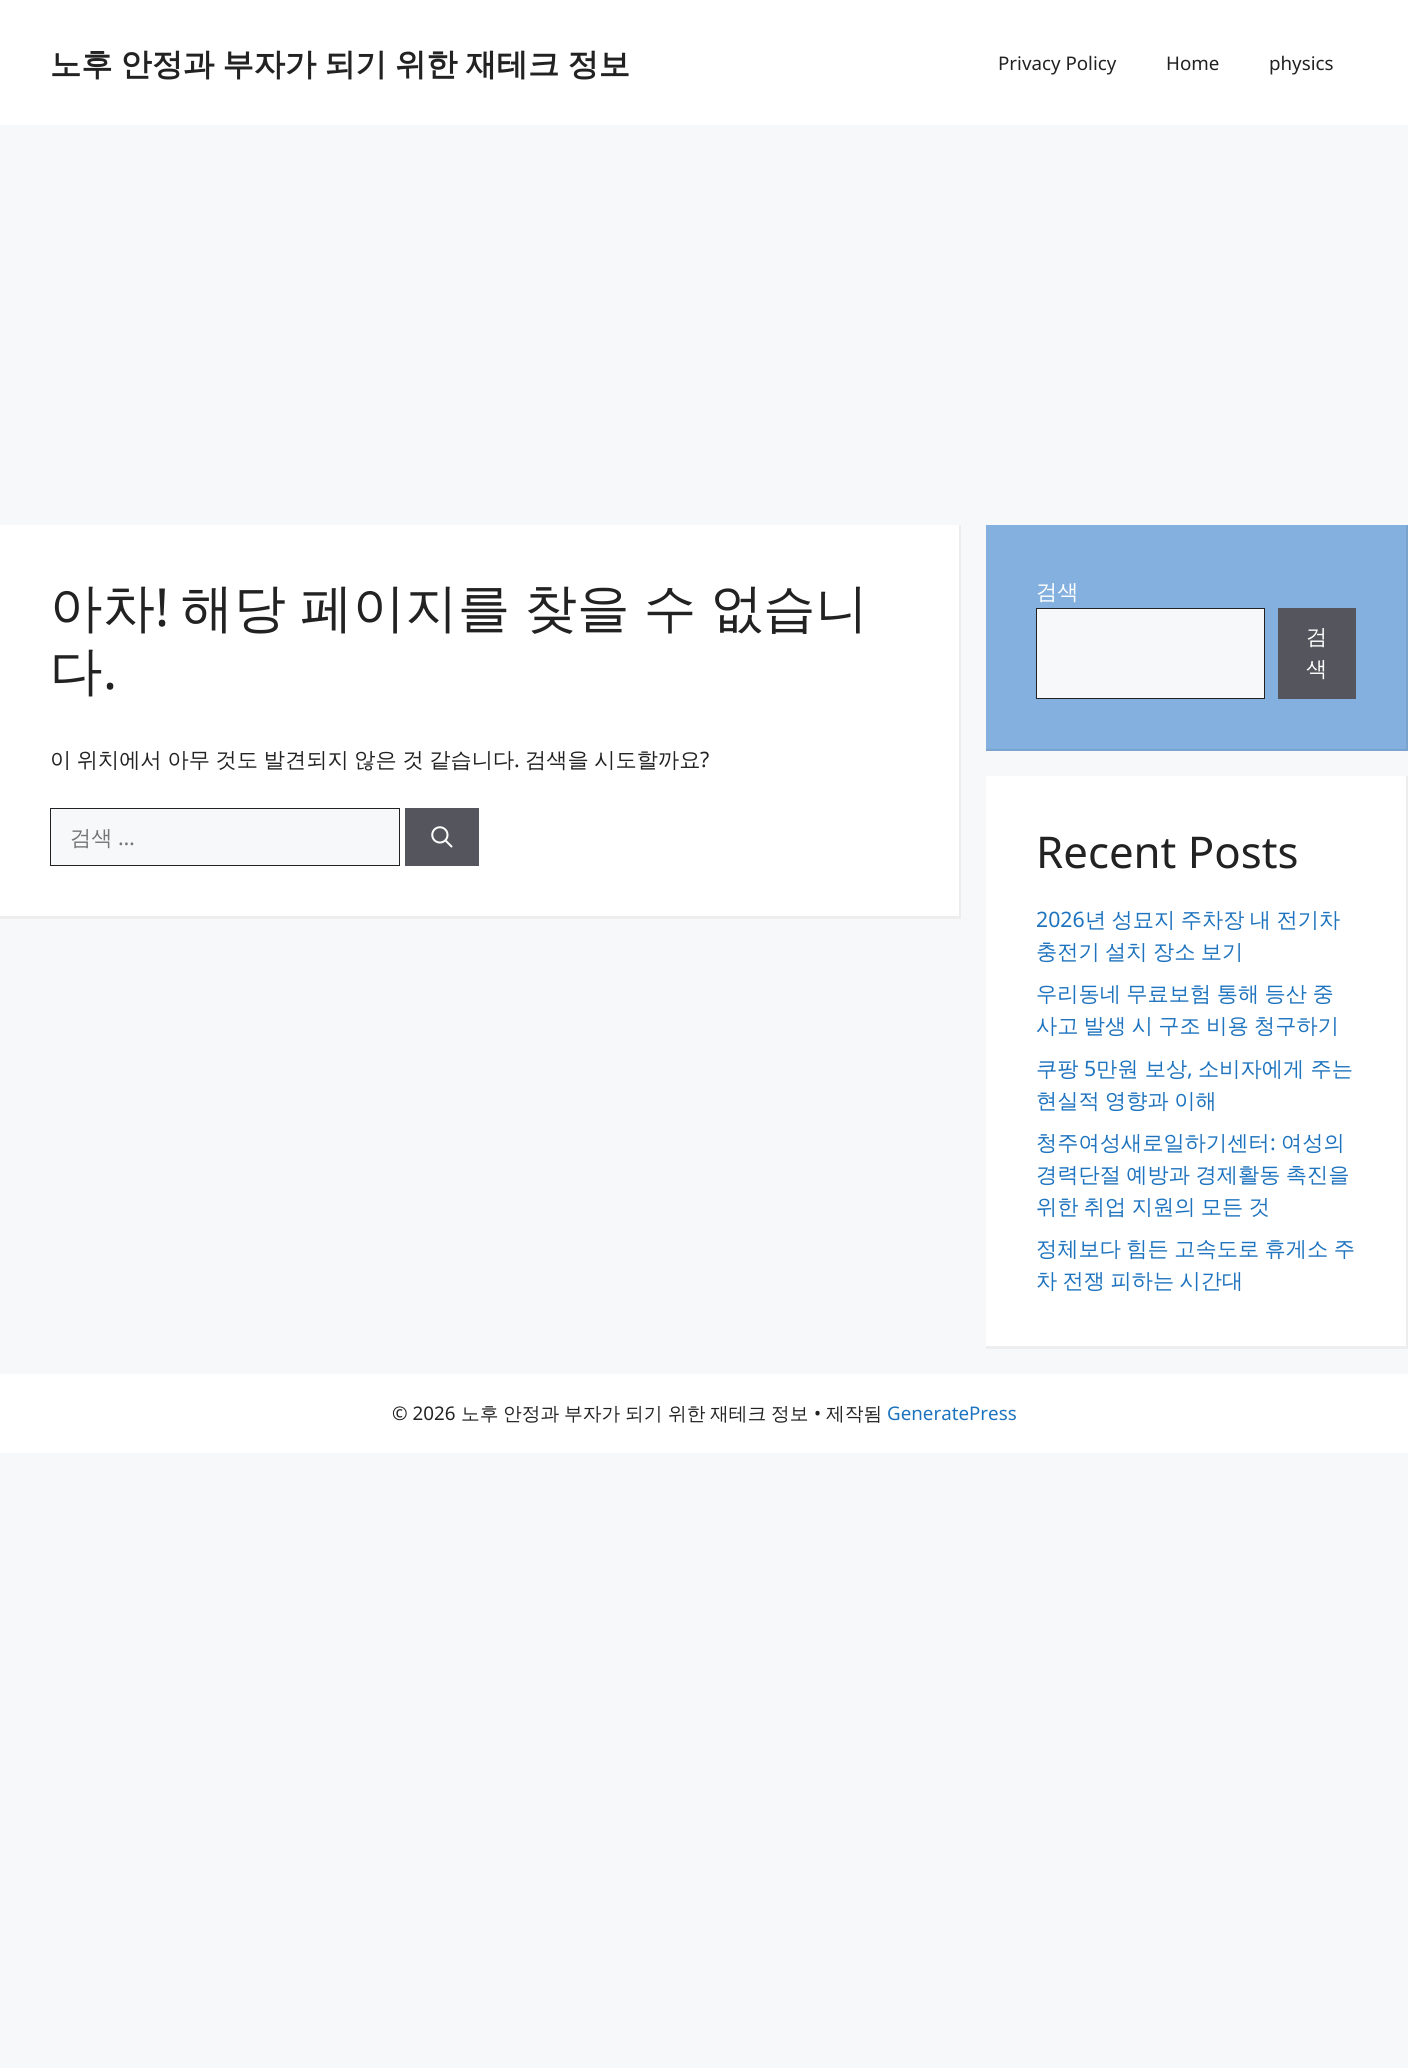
#include <cairo/cairo.h>
#include <math.h>
#include <stddef.h>


static void draw_spaced(cairo_t *cr, double x, double y, const char *s, double letter, double word) {
  cairo_move_to(cr, x, y);
  while (*s) {
    char ch[5] = {0};
    int n = 0;
    do ch[n++] = *s++; while ((*s & 0xC0) == 0x80);
    cairo_show_text(cr, ch);
    cairo_rel_move_to(cr, letter + word * (*ch == ' '), 0);
  }
}

static void draw_image(cairo_t *cr, const char *path, double x, double y, double w, double h) {
  cairo_surface_t *image = cairo_image_surface_create_from_png(path);
  cairo_save(cr);
  cairo_set_source_surface(cr, image, x, y);
  cairo_rectangle(cr, x, y, w, h);
  cairo_fill(cr);
  cairo_restore(cr);
  cairo_surface_destroy(image);
}

static void draw(cairo_t *cr) {
  cairo_set_source_rgb(cr, 247 / 255.0, 248 / 255.0, 249 / 255.0);
  cairo_paint(cr);
  cairo_set_source_rgb(cr, 1, 1, 1);
  cairo_rectangle(cr, 0, 0, 1408, 125);
  cairo_fill(cr);
  cairo_rectangle(cr, 0, 525, 961, 394);
  cairo_fill(cr);
  cairo_set_source_rgb(cr, 237 / 255.0, 237 / 255.0, 237 / 255.0);
  cairo_new_path(cr);
  cairo_move_to(cr, 961, 525);
  cairo_line_to(cr, 961, 919);
  cairo_line_to(cr, 959, 916);
  cairo_line_to(cr, 959, 525);
  cairo_close_path(cr);
  cairo_fill(cr);
  cairo_set_source_rgba(cr, 0, 0, 0, 0.07);
  cairo_new_path(cr);
  cairo_move_to(cr, 961, 919);
  cairo_line_to(cr, 0, 919);
  cairo_line_to(cr, 0, 916);
  cairo_line_to(cr, 959, 916);
  cairo_close_path(cr);
  cairo_fill(cr);
  cairo_set_source_rgb(cr, 247 / 255.0, 248 / 255.0, 249 / 255.0);
  cairo_rectangle(cr, 50.5, 808.5, 349, 57);
  cairo_fill_preserve(cr);
  cairo_set_source_rgb(cr, 34 / 255.0, 34 / 255.0, 34 / 255.0);
  cairo_set_line_width(cr, 1);
  cairo_stroke(cr);
  cairo_set_source_rgb(cr, 85 / 255.0, 85 / 255.0, 94 / 255.0);
  cairo_rectangle(cr, 405, 808, 74, 58);
  cairo_fill(cr);
  draw_image(cr, "images/1.png", 431, 826, 22, 22);
  cairo_set_source_rgb(cr, 131 / 255.0, 176 / 255.0, 222 / 255.0);
  cairo_rectangle(cr, 986, 525, 422, 226);
  cairo_fill(cr);
  cairo_set_source_rgb(cr, 122 / 255.0, 164 / 255.0, 206 / 255.0);
  cairo_new_path(cr);
  cairo_move_to(cr, 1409, 525);
  cairo_line_to(cr, 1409, 751);
  cairo_line_to(cr, 1406, 749);
  cairo_line_to(cr, 1406, 525);
  cairo_close_path(cr);
  cairo_fill(cr);
  cairo_set_source_rgba(cr, 0, 0, 0, 0.07);
  cairo_new_path(cr);
  cairo_move_to(cr, 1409, 751);
  cairo_line_to(cr, 986, 751);
  cairo_line_to(cr, 986, 749);
  cairo_line_to(cr, 1406, 749);
  cairo_close_path(cr);
  cairo_fill(cr);
  cairo_set_source_rgb(cr, 247 / 255.0, 248 / 255.0, 249 / 255.0);
  cairo_rectangle(cr, 1036.5, 608.5, 228, 90);
  cairo_fill_preserve(cr);
  cairo_set_source_rgb(cr, 34 / 255.0, 34 / 255.0, 34 / 255.0);
  cairo_stroke(cr);
  cairo_set_source_rgb(cr, 85 / 255.0, 85 / 255.0, 94 / 255.0);
  cairo_rectangle(cr, 1278, 608, 78, 91);
  cairo_fill(cr);
  cairo_set_source_rgb(cr, 1, 1, 1);
  cairo_rectangle(cr, 986, 776, 422, 573);
  cairo_fill(cr);
  cairo_set_source_rgb(cr, 237 / 255.0, 237 / 255.0, 237 / 255.0);
  cairo_new_path(cr);
  cairo_move_to(cr, 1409, 776);
  cairo_line_to(cr, 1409, 1349);
  cairo_line_to(cr, 1406, 1346);
  cairo_line_to(cr, 1406, 776);
  cairo_close_path(cr);
  cairo_fill(cr);
  cairo_set_source_rgba(cr, 0, 0, 0, 0.07);
  cairo_new_path(cr);
  cairo_move_to(cr, 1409, 1349);
  cairo_line_to(cr, 986, 1349);
  cairo_line_to(cr, 986, 1346);
  cairo_line_to(cr, 1406, 1346);
  cairo_close_path(cr);
  cairo_fill(cr);
  cairo_set_source_rgb(cr, 1, 1, 1);
  cairo_rectangle(cr, 0, 1374, 1408, 79);
  cairo_fill(cr);
  cairo_select_font_face(cr, "WenQuanYi Zen Hei", CAIRO_FONT_SLANT_NORMAL, CAIRO_FONT_WEIGHT_BOLD);
  cairo_set_font_size(cr, 31.25);
  cairo_set_source_rgb(cr, 34 / 255.0, 34 / 255.0, 34 / 255.0);
  draw_spaced(cr, 50, 75, "노후 안정과 부자가 되기 위한 재테크 정보", 0, -1.25);
  cairo_select_font_face(cr, "Noto Sans", CAIRO_FONT_SLANT_NORMAL, CAIRO_FONT_WEIGHT_NORMAL);
  cairo_set_font_size(cr, 18.75);
  cairo_move_to(cr, 998, 70);
  cairo_show_text(cr, "Privacy Policy");
  cairo_move_to(cr, 1166, 70);
  cairo_show_text(cr, "Home");
  cairo_move_to(cr, 1269, 70);
  cairo_show_text(cr, "physics");
  cairo_select_font_face(cr, "WenQuanYi Zen Hei Medium", CAIRO_FONT_SLANT_NORMAL, CAIRO_FONT_WEIGHT_NORMAL);
  cairo_set_font_size(cr, 52.5);
  cairo_move_to(cr, 50, 626);
  cairo_show_text(cr, "아차");
  cairo_select_font_face(cr, "Noto Sans", CAIRO_FONT_SLANT_NORMAL, CAIRO_FONT_WEIGHT_NORMAL);
  cairo_move_to(cr, 155, 626);
  cairo_show_text(cr, "!");
  cairo_select_font_face(cr, "WenQuanYi Zen Hei Medium", CAIRO_FONT_SLANT_NORMAL, CAIRO_FONT_WEIGHT_NORMAL);
  draw_spaced(cr, 181, 626, "해당 페이지를 찾을 수 없습니", 0, -1.5);
  cairo_move_to(cr, 50, 689);
  cairo_show_text(cr, "다");
  cairo_select_font_face(cr, "Noto Sans", CAIRO_FONT_SLANT_NORMAL, CAIRO_FONT_WEIGHT_NORMAL);
  cairo_move_to(cr, 103, 689);
  cairo_show_text(cr, ".");
  cairo_select_font_face(cr, "WenQuanYi Zen Hei Medium", CAIRO_FONT_SLANT_NORMAL, CAIRO_FONT_WEIGHT_NORMAL);
  cairo_set_font_size(cr, 21.25);
  draw_spaced(cr, 50, 767, "이 위치에서 아무 것도 발견되지 않은 것 같습니다", 0, -0.75);
  cairo_select_font_face(cr, "Noto Sans", CAIRO_FONT_SLANT_NORMAL, CAIRO_FONT_WEIGHT_NORMAL);
  cairo_move_to(cr, 514, 767);
  cairo_show_text(cr, ".");
  cairo_select_font_face(cr, "WenQuanYi Zen Hei Medium", CAIRO_FONT_SLANT_NORMAL, CAIRO_FONT_WEIGHT_NORMAL);
  draw_spaced(cr, 525, 767, "검색을 시도할까요", 0, -0.75);
  cairo_select_font_face(cr, "Noto Sans", CAIRO_FONT_SLANT_NORMAL, CAIRO_FONT_WEIGHT_NORMAL);
  cairo_move_to(cr, 700, 767);
  cairo_show_text(cr, "?");
  cairo_select_font_face(cr, "WenQuanYi Zen Hei Medium", CAIRO_FONT_SLANT_NORMAL, CAIRO_FONT_WEIGHT_NORMAL);
  cairo_set_source_rgb(cr, 117 / 255.0, 117 / 255.0, 117 / 255.0);
  cairo_move_to(cr, 70, 845);
  cairo_show_text(cr, "검색");
  cairo_select_font_face(cr, "Noto Sans", CAIRO_FONT_SLANT_NORMAL, CAIRO_FONT_WEIGHT_NORMAL);
  cairo_move_to(cr, 118, 845);
  cairo_show_text(cr, "…");
  cairo_select_font_face(cr, "WenQuanYi Zen Hei Medium", CAIRO_FONT_SLANT_NORMAL, CAIRO_FONT_WEIGHT_NORMAL);
  cairo_set_source_rgb(cr, 1, 1, 1);
  cairo_move_to(cr, 1036, 599);
  cairo_show_text(cr, "검색");
  cairo_move_to(cr, 1306, 644);
  cairo_show_text(cr, "검");
  cairo_move_to(cr, 1306, 676);
  cairo_show_text(cr, "색");
  cairo_select_font_face(cr, "Noto Sans", CAIRO_FONT_SLANT_NORMAL, CAIRO_FONT_WEIGHT_NORMAL);
  cairo_set_font_size(cr, 43.75);
  cairo_set_source_rgb(cr, 34 / 255.0, 34 / 255.0, 34 / 255.0);
  cairo_move_to(cr, 1036, 868);
  cairo_show_text(cr, "Recent Posts");
  cairo_set_font_size(cr, 21.25);
  cairo_set_source_rgb(cr, 30 / 255.0, 115 / 255.0, 190 / 255.0);
  cairo_move_to(cr, 1036, 927);
  cairo_show_text(cr, "2026");
  cairo_select_font_face(cr, "WenQuanYi Zen Hei Medium", CAIRO_FONT_SLANT_NORMAL, CAIRO_FONT_WEIGHT_NORMAL);
  draw_spaced(cr, 1085, 927, "년 성묘지 주차장 내 전기차", 0, -1);
  draw_spaced(cr, 1036, 959, "충전기 설치 장소 보기", 0, -1);
  draw_spaced(cr, 1036, 1001, "우리동네 무료보험 통해 등산 중", 0, -1);
  draw_spaced(cr, 1036, 1033, "사고 발생 시 구조 비용 청구하기", 0, -1);
  cairo_move_to(cr, 1036, 1076);
  cairo_show_text(cr, "쿠팡");
  cairo_select_font_face(cr, "Noto Sans", CAIRO_FONT_SLANT_NORMAL, CAIRO_FONT_WEIGHT_NORMAL);
  cairo_move_to(cr, 1084, 1076);
  cairo_show_text(cr, "5");
  cairo_select_font_face(cr, "WenQuanYi Zen Hei Medium", CAIRO_FONT_SLANT_NORMAL, CAIRO_FONT_WEIGHT_NORMAL);
  cairo_move_to(cr, 1096, 1076);
  cairo_show_text(cr, "만원 보상");
  cairo_select_font_face(cr, "Noto Sans", CAIRO_FONT_SLANT_NORMAL, CAIRO_FONT_WEIGHT_NORMAL);
  cairo_move_to(cr, 1187, 1076);
  cairo_show_text(cr, ",");
  cairo_select_font_face(cr, "WenQuanYi Zen Hei Medium", CAIRO_FONT_SLANT_NORMAL, CAIRO_FONT_WEIGHT_NORMAL);
  cairo_move_to(cr, 1198, 1076);
  cairo_show_text(cr, "소비자에게 주는");
  draw_spaced(cr, 1036, 1108, "현실적 영향과 이해", 0, -1);
  cairo_move_to(cr, 1036, 1150);
  cairo_show_text(cr, "청주여성새로일하기센터");
  cairo_select_font_face(cr, "Noto Sans", CAIRO_FONT_SLANT_NORMAL, CAIRO_FONT_WEIGHT_NORMAL);
  cairo_move_to(cr, 1270, 1150);
  cairo_show_text(cr, ":");
  cairo_select_font_face(cr, "WenQuanYi Zen Hei Medium", CAIRO_FONT_SLANT_NORMAL, CAIRO_FONT_WEIGHT_NORMAL);
  cairo_move_to(cr, 1281, 1150);
  cairo_show_text(cr, "여성의");
  draw_spaced(cr, 1036, 1182, "경력단절 예방과 경제활동 촉진을", 0, -1);
  draw_spaced(cr, 1036, 1214, "위한 취업 지원의 모든 것", 0, -1);
  draw_spaced(cr, 1036, 1256, "정체보다 힘든 고속도로 휴게소 주", 0, -1);
  draw_spaced(cr, 1036, 1288, "차 전쟁 피하는 시간대", 0, -1);
  cairo_select_font_face(cr, "Noto Sans", CAIRO_FONT_SLANT_NORMAL, CAIRO_FONT_WEIGHT_NORMAL);
  cairo_set_font_size(cr, 18.75);
  cairo_set_source_rgb(cr, 34 / 255.0, 34 / 255.0, 34 / 255.0);
  cairo_move_to(cr, 392, 1420);
  cairo_show_text(cr, "© 2026");
  cairo_select_font_face(cr, "WenQuanYi Zen Hei Medium", CAIRO_FONT_SLANT_NORMAL, CAIRO_FONT_WEIGHT_NORMAL);
  cairo_move_to(cr, 461, 1420);
  cairo_show_text(cr, "노후");
  cairo_move_to(cr, 503, 1420);
  cairo_show_text(cr, "안정과");
  cairo_move_to(cr, 564, 1420);
  cairo_show_text(cr, "부자가");
  cairo_move_to(cr, 625, 1420);
  cairo_show_text(cr, "되기");
  cairo_move_to(cr, 668, 1420);
  cairo_show_text(cr, "위한");
  cairo_move_to(cr, 710, 1420);
  cairo_show_text(cr, "재테크");
  cairo_move_to(cr, 771, 1420);
  cairo_show_text(cr, "정보");
  cairo_select_font_face(cr, "Noto Sans", CAIRO_FONT_SLANT_NORMAL, CAIRO_FONT_WEIGHT_NORMAL);
  cairo_move_to(cr, 814, 1420);
  cairo_show_text(cr, "•");
  cairo_select_font_face(cr, "WenQuanYi Zen Hei Medium", CAIRO_FONT_SLANT_NORMAL, CAIRO_FONT_WEIGHT_NORMAL);
  cairo_move_to(cr, 826, 1420);
  cairo_show_text(cr, "제작됨");
  cairo_select_font_face(cr, "Noto Sans", CAIRO_FONT_SLANT_NORMAL, CAIRO_FONT_WEIGHT_NORMAL);
  cairo_set_source_rgb(cr, 30 / 255.0, 115 / 255.0, 190 / 255.0);
  cairo_move_to(cr, 887, 1420);
  cairo_show_text(cr, "GeneratePress");
}

int main(void) {
  cairo_surface_t *surface = cairo_image_surface_create(CAIRO_FORMAT_RGB24, 1408, 2068);
  cairo_t *cr = cairo_create(surface);
  cairo_font_options_t *options = cairo_font_options_create();
  cairo_font_options_set_hint_metrics(options, CAIRO_HINT_METRICS_OFF);
  cairo_font_options_set_hint_style(options, CAIRO_HINT_STYLE_NONE);
  cairo_set_font_options(cr, options);
  cairo_set_miter_limit(cr, 4);
  draw(cr);
  cairo_surface_write_to_png(surface, "out.png");
  cairo_font_options_destroy(options);
  cairo_destroy(cr);
  cairo_surface_destroy(surface);
  return 0;
}
